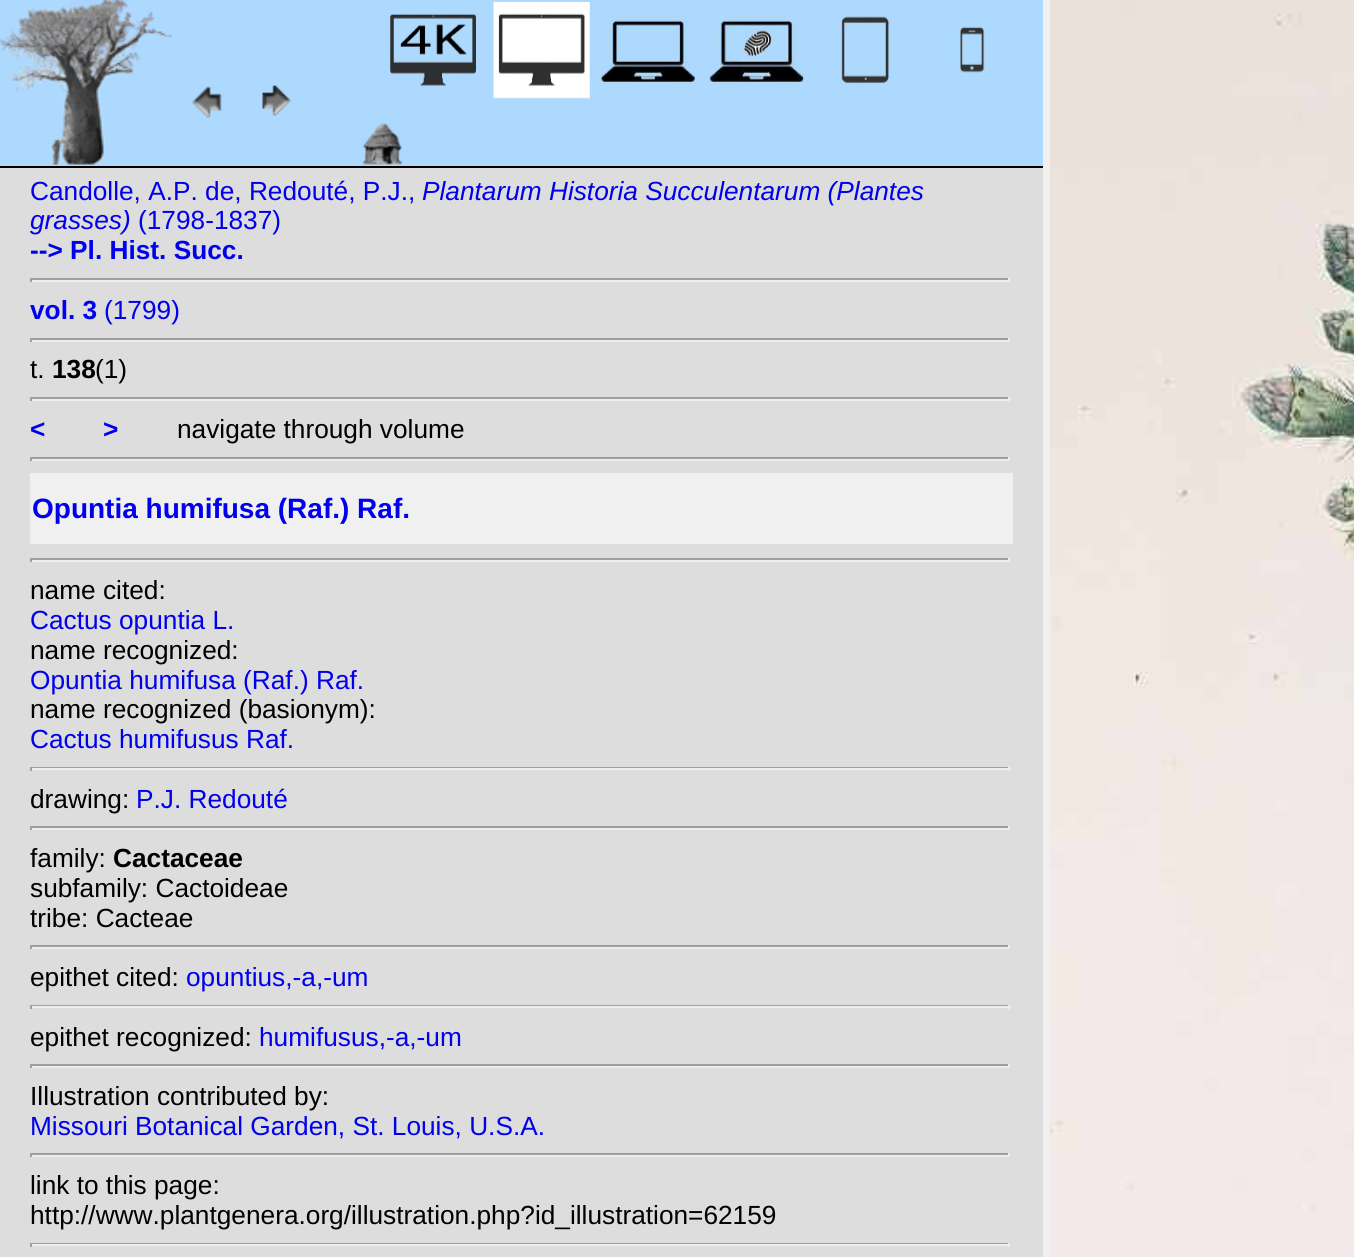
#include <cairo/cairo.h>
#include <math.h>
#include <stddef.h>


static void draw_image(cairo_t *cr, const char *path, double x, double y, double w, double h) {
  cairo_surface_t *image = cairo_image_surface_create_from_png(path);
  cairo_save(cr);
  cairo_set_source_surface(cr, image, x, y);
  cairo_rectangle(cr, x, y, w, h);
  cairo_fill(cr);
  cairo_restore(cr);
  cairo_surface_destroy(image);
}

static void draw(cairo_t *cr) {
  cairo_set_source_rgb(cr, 240 / 255.0, 240 / 255.0, 240 / 255.0);
  cairo_paint(cr);
  cairo_set_source_rgb(cr, 221 / 255.0, 221 / 255.0, 221 / 255.0);
  cairo_rectangle(cr, 0, 168, 1043, 1089);
  cairo_fill(cr);
  cairo_set_source_rgb(cr, 173 / 255.0, 217 / 255.0, 254 / 255.0);
  cairo_rectangle(cr, 0, 0, 1043, 166);
  cairo_fill(cr);
  cairo_set_source_rgb(cr, 0, 0, 0);
  cairo_rectangle(cr, 0, 166, 1043, 2);
  cairo_fill(cr);
  draw_image(cr, "images/1.png", 0, 0, 175, 165);
  draw_image(cr, "images/2.png", 191, 86, 31, 33);
  draw_image(cr, "images/3.png", 262, 85, 29, 31);
  draw_image(cr, "images/4.png", 388, 13, 89, 74);
  draw_image(cr, "images/5.png", 493, 2, 97, 97);
  draw_image(cr, "images/6.png", 600, 16, 97, 67);
  draw_image(cr, "images/7.png", 708, 16, 97, 67);
  draw_image(cr, "images/8.png", 841, 16, 48, 68);
  draw_image(cr, "images/9.png", 958, 27, 27, 46);
  draw_image(cr, "images/10.png", 362, 123, 41, 42);
  cairo_set_source_rgb(cr, 159 / 255.0, 159 / 255.0, 159 / 255.0);
  cairo_rectangle(cr, 30, 278, 980, 2);
  cairo_fill(cr);
  cairo_set_source_rgb(cr, 238 / 255.0, 238 / 255.0, 238 / 255.0);
  cairo_rectangle(cr, 1008, 278, 2, 4);
  cairo_fill(cr);
  cairo_rectangle(cr, 30, 280, 980, 2);
  cairo_fill(cr);
  cairo_set_source_rgb(cr, 159 / 255.0, 159 / 255.0, 159 / 255.0);
  cairo_rectangle(cr, 30, 278, 2, 4);
  cairo_fill(cr);
  cairo_rectangle(cr, 30, 338, 980, 2);
  cairo_fill(cr);
  cairo_set_source_rgb(cr, 238 / 255.0, 238 / 255.0, 238 / 255.0);
  cairo_rectangle(cr, 1008, 338, 2, 4);
  cairo_fill(cr);
  cairo_rectangle(cr, 30, 340, 980, 2);
  cairo_fill(cr);
  cairo_set_source_rgb(cr, 159 / 255.0, 159 / 255.0, 159 / 255.0);
  cairo_rectangle(cr, 30, 338, 2, 4);
  cairo_fill(cr);
  cairo_rectangle(cr, 30, 397, 980, 2);
  cairo_fill(cr);
  cairo_set_source_rgb(cr, 238 / 255.0, 238 / 255.0, 238 / 255.0);
  cairo_rectangle(cr, 1008, 397, 2, 4);
  cairo_fill(cr);
  cairo_rectangle(cr, 30, 399, 980, 2);
  cairo_fill(cr);
  cairo_set_source_rgb(cr, 159 / 255.0, 159 / 255.0, 159 / 255.0);
  cairo_rectangle(cr, 30, 397, 2, 4);
  cairo_fill(cr);
  cairo_rectangle(cr, 30, 457, 980, 2);
  cairo_fill(cr);
  cairo_set_source_rgb(cr, 238 / 255.0, 238 / 255.0, 238 / 255.0);
  cairo_rectangle(cr, 1008, 457, 2, 4);
  cairo_fill(cr);
  cairo_rectangle(cr, 30, 459, 980, 2);
  cairo_fill(cr);
  cairo_set_source_rgb(cr, 159 / 255.0, 159 / 255.0, 159 / 255.0);
  cairo_rectangle(cr, 30, 457, 2, 4);
  cairo_fill(cr);
  cairo_set_source_rgb(cr, 240 / 255.0, 240 / 255.0, 240 / 255.0);
  cairo_rectangle(cr, 30, 473, 983, 71);
  cairo_fill(cr);
  cairo_set_source_rgb(cr, 159 / 255.0, 159 / 255.0, 159 / 255.0);
  cairo_rectangle(cr, 30, 558, 980, 2);
  cairo_fill(cr);
  cairo_set_source_rgb(cr, 238 / 255.0, 238 / 255.0, 238 / 255.0);
  cairo_rectangle(cr, 1008, 558, 2, 4);
  cairo_fill(cr);
  cairo_rectangle(cr, 30, 560, 980, 2);
  cairo_fill(cr);
  cairo_set_source_rgb(cr, 159 / 255.0, 159 / 255.0, 159 / 255.0);
  cairo_rectangle(cr, 30, 558, 2, 4);
  cairo_fill(cr);
  cairo_rectangle(cr, 30, 767, 980, 1);
  cairo_fill(cr);
  cairo_set_source_rgb(cr, 238 / 255.0, 238 / 255.0, 238 / 255.0);
  cairo_rectangle(cr, 1008, 767, 2, 4);
  cairo_fill(cr);
  cairo_rectangle(cr, 30, 768, 980, 2);
  cairo_fill(cr);
  cairo_set_source_rgb(cr, 159 / 255.0, 159 / 255.0, 159 / 255.0);
  cairo_rectangle(cr, 30, 767, 2, 4);
  cairo_fill(cr);
  cairo_rectangle(cr, 30, 826, 980, 2);
  cairo_fill(cr);
  cairo_set_source_rgb(cr, 238 / 255.0, 238 / 255.0, 238 / 255.0);
  cairo_rectangle(cr, 1008, 826, 2, 4);
  cairo_fill(cr);
  cairo_rectangle(cr, 30, 828, 980, 2);
  cairo_fill(cr);
  cairo_set_source_rgb(cr, 159 / 255.0, 159 / 255.0, 159 / 255.0);
  cairo_rectangle(cr, 30, 826, 2, 4);
  cairo_fill(cr);
  cairo_rectangle(cr, 30, 945, 980, 2);
  cairo_fill(cr);
  cairo_set_source_rgb(cr, 238 / 255.0, 238 / 255.0, 238 / 255.0);
  cairo_rectangle(cr, 1008, 945, 2, 4);
  cairo_fill(cr);
  cairo_rectangle(cr, 30, 947, 980, 2);
  cairo_fill(cr);
  cairo_set_source_rgb(cr, 159 / 255.0, 159 / 255.0, 159 / 255.0);
  cairo_rectangle(cr, 30, 945, 2, 4);
  cairo_fill(cr);
  cairo_rectangle(cr, 30, 1005, 980, 1);
  cairo_fill(cr);
  cairo_set_source_rgb(cr, 238 / 255.0, 238 / 255.0, 238 / 255.0);
  cairo_rectangle(cr, 1008, 1005, 2, 4);
  cairo_fill(cr);
  cairo_rectangle(cr, 30, 1006, 980, 2);
  cairo_fill(cr);
  cairo_set_source_rgb(cr, 159 / 255.0, 159 / 255.0, 159 / 255.0);
  cairo_rectangle(cr, 30, 1005, 2, 4);
  cairo_fill(cr);
  cairo_rectangle(cr, 30, 1064, 980, 2);
  cairo_fill(cr);
  cairo_set_source_rgb(cr, 238 / 255.0, 238 / 255.0, 238 / 255.0);
  cairo_rectangle(cr, 1008, 1064, 2, 4);
  cairo_fill(cr);
  cairo_rectangle(cr, 30, 1066, 980, 2);
  cairo_fill(cr);
  cairo_set_source_rgb(cr, 159 / 255.0, 159 / 255.0, 159 / 255.0);
  cairo_rectangle(cr, 30, 1064, 2, 4);
  cairo_fill(cr);
  cairo_rectangle(cr, 30, 1153, 980, 2);
  cairo_fill(cr);
  cairo_set_source_rgb(cr, 238 / 255.0, 238 / 255.0, 238 / 255.0);
  cairo_rectangle(cr, 1008, 1153, 2, 4);
  cairo_fill(cr);
  cairo_rectangle(cr, 30, 1155, 980, 2);
  cairo_fill(cr);
  cairo_set_source_rgb(cr, 159 / 255.0, 159 / 255.0, 159 / 255.0);
  cairo_rectangle(cr, 30, 1153, 2, 4);
  cairo_fill(cr);
  cairo_rectangle(cr, 30, 1243, 980, 1);
  cairo_fill(cr);
  cairo_set_source_rgb(cr, 238 / 255.0, 238 / 255.0, 238 / 255.0);
  cairo_rectangle(cr, 1008, 1243, 2, 4);
  cairo_fill(cr);
  cairo_rectangle(cr, 30, 1244, 980, 2);
  cairo_fill(cr);
  cairo_set_source_rgb(cr, 159 / 255.0, 159 / 255.0, 159 / 255.0);
  cairo_rectangle(cr, 30, 1243, 2, 4);
  cairo_fill(cr);
  draw_image(cr, "images/11.png", 1050, 0, 304, 1257);
  cairo_select_font_face(cr, "Liberation Sans", CAIRO_FONT_SLANT_NORMAL, CAIRO_FONT_WEIGHT_NORMAL);
  cairo_set_font_size(cr, 26.25);
  cairo_set_source_rgb(cr, 0, 0, 238 / 255.0);
  cairo_move_to(cr, 30, 200);
  cairo_show_text(cr, "Candolle, A.P. de, Redouté, P.J.,");
  cairo_select_font_face(cr, "Liberation Sans", CAIRO_FONT_SLANT_ITALIC, CAIRO_FONT_WEIGHT_NORMAL);
  cairo_move_to(cr, 422, 200);
  cairo_show_text(cr, "Plantarum Historia Succulentarum (Plantes");
  cairo_move_to(cr, 30, 229);
  cairo_show_text(cr, "grasses)");
  cairo_select_font_face(cr, "Liberation Sans", CAIRO_FONT_SLANT_NORMAL, CAIRO_FONT_WEIGHT_NORMAL);
  cairo_move_to(cr, 138, 229);
  cairo_show_text(cr, "(1798-1837)");
  cairo_select_font_face(cr, "Liberation Sans", CAIRO_FONT_SLANT_NORMAL, CAIRO_FONT_WEIGHT_BOLD);
  cairo_move_to(cr, 30, 259);
  cairo_show_text(cr, "--> Pl. Hist. Succ.");
  cairo_move_to(cr, 30, 319);
  cairo_show_text(cr, "vol. 3");
  cairo_select_font_face(cr, "Liberation Sans", CAIRO_FONT_SLANT_NORMAL, CAIRO_FONT_WEIGHT_NORMAL);
  cairo_move_to(cr, 104, 319);
  cairo_show_text(cr, "(1799)");
  cairo_set_source_rgb(cr, 0, 0, 0);
  cairo_move_to(cr, 30, 378);
  cairo_show_text(cr, "t.");
  cairo_select_font_face(cr, "Liberation Sans", CAIRO_FONT_SLANT_NORMAL, CAIRO_FONT_WEIGHT_BOLD);
  cairo_move_to(cr, 52, 378);
  cairo_show_text(cr, "138");
  cairo_select_font_face(cr, "Liberation Sans", CAIRO_FONT_SLANT_NORMAL, CAIRO_FONT_WEIGHT_NORMAL);
  cairo_move_to(cr, 95, 378);
  cairo_show_text(cr, "(1)");
  cairo_select_font_face(cr, "Liberation Sans", CAIRO_FONT_SLANT_NORMAL, CAIRO_FONT_WEIGHT_BOLD);
  cairo_set_source_rgb(cr, 0, 0, 238 / 255.0);
  cairo_move_to(cr, 30, 438);
  cairo_show_text(cr, "<");
  cairo_move_to(cr, 103, 438);
  cairo_show_text(cr, ">");
  cairo_select_font_face(cr, "Liberation Sans", CAIRO_FONT_SLANT_NORMAL, CAIRO_FONT_WEIGHT_NORMAL);
  cairo_set_source_rgb(cr, 0, 0, 0);
  cairo_move_to(cr, 177, 438);
  cairo_show_text(cr, "navigate through volume");
  cairo_select_font_face(cr, "Liberation Sans", CAIRO_FONT_SLANT_NORMAL, CAIRO_FONT_WEIGHT_BOLD);
  cairo_set_font_size(cr, 28);
  cairo_set_source_rgb(cr, 0, 0, 238 / 255.0);
  cairo_move_to(cr, 32, 518);
  cairo_show_text(cr, "Opuntia humifusa (Raf.) Raf.");
  cairo_select_font_face(cr, "Liberation Sans", CAIRO_FONT_SLANT_NORMAL, CAIRO_FONT_WEIGHT_NORMAL);
  cairo_set_font_size(cr, 26.25);
  cairo_set_source_rgb(cr, 0, 0, 0);
  cairo_move_to(cr, 30, 599);
  cairo_show_text(cr, "name cited:");
  cairo_set_source_rgb(cr, 0, 0, 238 / 255.0);
  cairo_move_to(cr, 30, 629);
  cairo_show_text(cr, "Cactus opuntia L.");
  cairo_set_source_rgb(cr, 0, 0, 0);
  cairo_move_to(cr, 30, 659);
  cairo_show_text(cr, "name recognized:");
  cairo_set_source_rgb(cr, 0, 0, 238 / 255.0);
  cairo_move_to(cr, 30, 689);
  cairo_show_text(cr, "Opuntia humifusa (Raf.) Raf.");
  cairo_set_source_rgb(cr, 0, 0, 0);
  cairo_move_to(cr, 30, 718);
  cairo_show_text(cr, "name recognized (basionym):");
  cairo_set_source_rgb(cr, 0, 0, 238 / 255.0);
  cairo_move_to(cr, 30, 748);
  cairo_show_text(cr, "Cactus humifusus Raf.");
  cairo_set_source_rgb(cr, 0, 0, 0);
  cairo_move_to(cr, 30, 808);
  cairo_show_text(cr, "drawing:");
  cairo_set_source_rgb(cr, 0, 0, 238 / 255.0);
  cairo_move_to(cr, 136, 808);
  cairo_show_text(cr, "P.J. Redouté");
  cairo_set_source_rgb(cr, 0, 0, 0);
  cairo_move_to(cr, 30, 867);
  cairo_show_text(cr, "family:");
  cairo_select_font_face(cr, "Liberation Sans", CAIRO_FONT_SLANT_NORMAL, CAIRO_FONT_WEIGHT_BOLD);
  cairo_move_to(cr, 113, 867);
  cairo_show_text(cr, "Cactaceae");
  cairo_select_font_face(cr, "Liberation Sans", CAIRO_FONT_SLANT_NORMAL, CAIRO_FONT_WEIGHT_NORMAL);
  cairo_move_to(cr, 30, 897);
  cairo_show_text(cr, "subfamily: Cactoideae");
  cairo_move_to(cr, 30, 927);
  cairo_show_text(cr, "tribe: Cacteae");
  cairo_move_to(cr, 30, 986);
  cairo_show_text(cr, "epithet cited:");
  cairo_set_source_rgb(cr, 0, 0, 238 / 255.0);
  cairo_move_to(cr, 186, 986);
  cairo_show_text(cr, "opuntius,-a,-um");
  cairo_set_source_rgb(cr, 0, 0, 0);
  cairo_move_to(cr, 30, 1046);
  cairo_show_text(cr, "epithet recognized:");
  cairo_set_source_rgb(cr, 0, 0, 238 / 255.0);
  cairo_move_to(cr, 259, 1046);
  cairo_show_text(cr, "humifusus,-a,-um");
  cairo_set_source_rgb(cr, 0, 0, 0);
  cairo_move_to(cr, 30, 1105);
  cairo_show_text(cr, "Illustration contributed by:");
  cairo_set_source_rgb(cr, 0, 0, 238 / 255.0);
  cairo_move_to(cr, 30, 1135);
  cairo_show_text(cr, "Missouri Botanical Garden, St. Louis, U.S.A.");
  cairo_set_source_rgb(cr, 0, 0, 0);
  cairo_move_to(cr, 30, 1194);
  cairo_show_text(cr, "link to this page:");
  cairo_move_to(cr, 30, 1224);
  cairo_show_text(cr, "http://www.plantgenera.org/illustration.php?id_illustration=62159");
}

int main(void) {
  cairo_surface_t *surface = cairo_image_surface_create(CAIRO_FORMAT_RGB24, 1354, 1257);
  cairo_t *cr = cairo_create(surface);
  cairo_font_options_t *options = cairo_font_options_create();
  cairo_font_options_set_hint_metrics(options, CAIRO_HINT_METRICS_OFF);
  cairo_font_options_set_hint_style(options, CAIRO_HINT_STYLE_NONE);
  cairo_set_font_options(cr, options);
  cairo_set_miter_limit(cr, 4);
  draw(cr);
  cairo_surface_write_to_png(surface, "out.png");
  cairo_font_options_destroy(options);
  cairo_destroy(cr);
  cairo_surface_destroy(surface);
  return 0;
}
